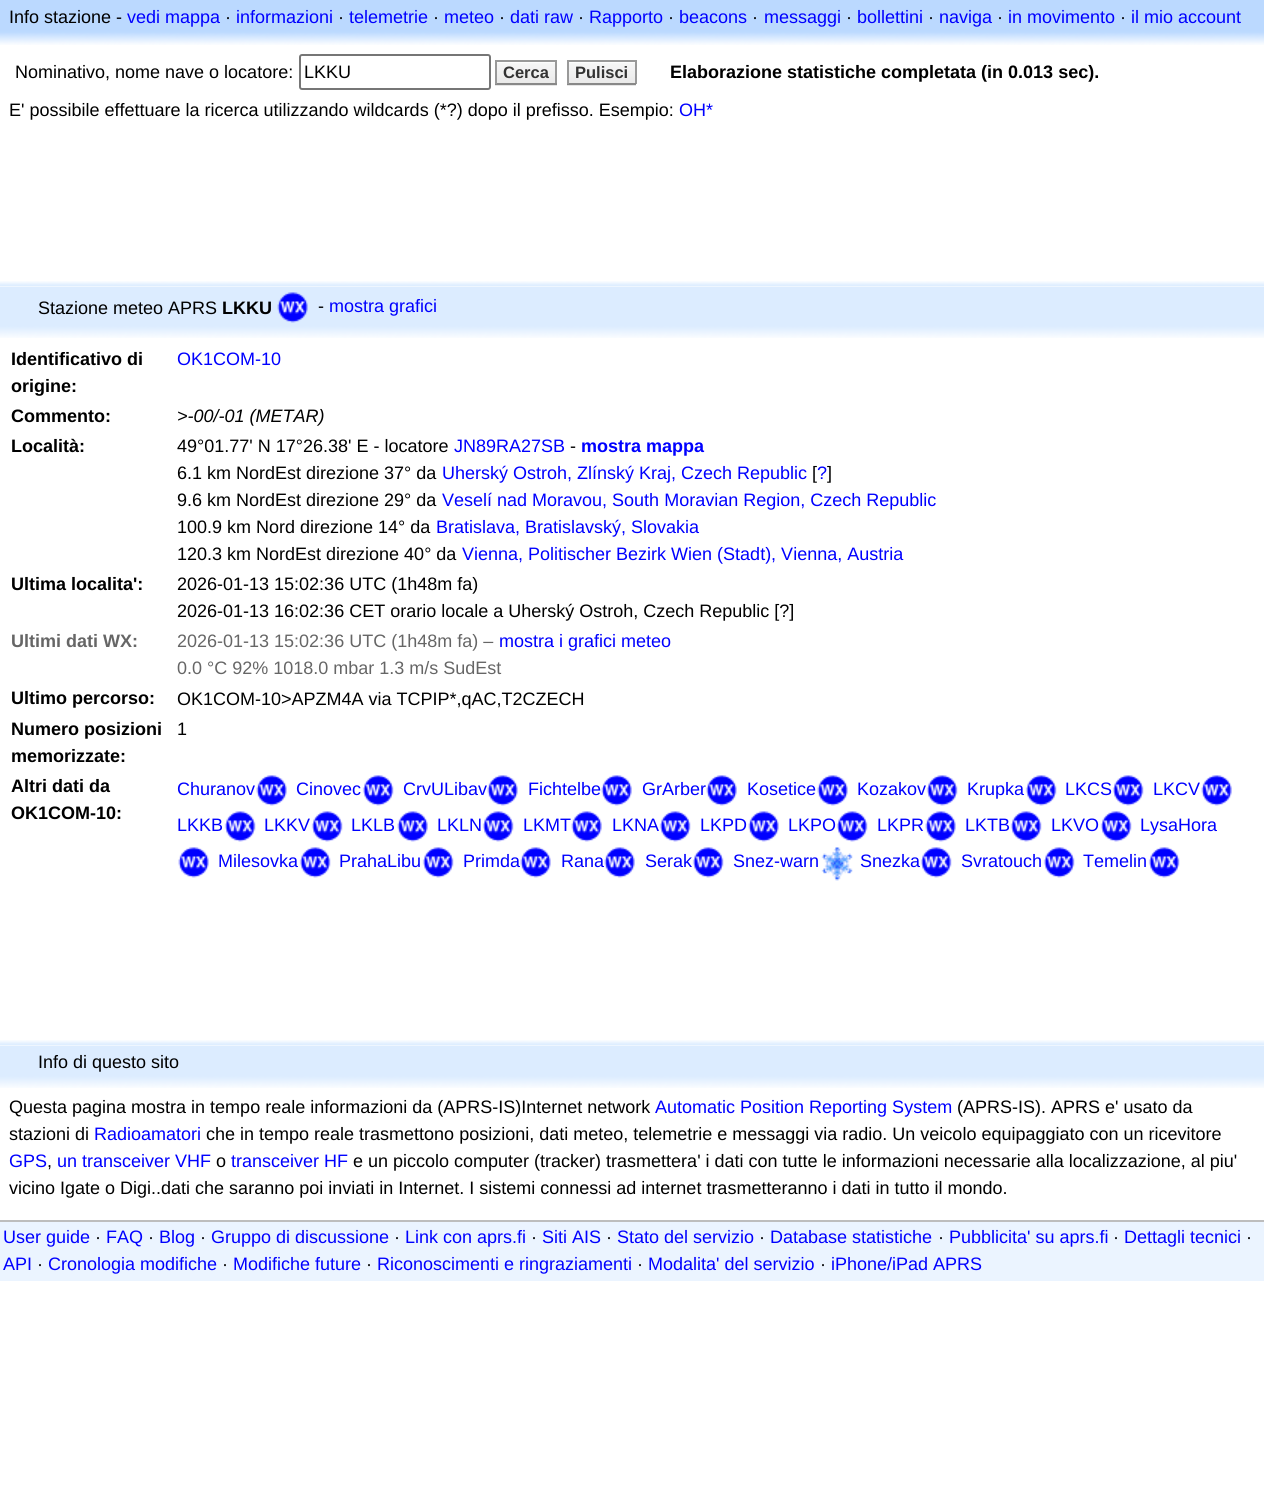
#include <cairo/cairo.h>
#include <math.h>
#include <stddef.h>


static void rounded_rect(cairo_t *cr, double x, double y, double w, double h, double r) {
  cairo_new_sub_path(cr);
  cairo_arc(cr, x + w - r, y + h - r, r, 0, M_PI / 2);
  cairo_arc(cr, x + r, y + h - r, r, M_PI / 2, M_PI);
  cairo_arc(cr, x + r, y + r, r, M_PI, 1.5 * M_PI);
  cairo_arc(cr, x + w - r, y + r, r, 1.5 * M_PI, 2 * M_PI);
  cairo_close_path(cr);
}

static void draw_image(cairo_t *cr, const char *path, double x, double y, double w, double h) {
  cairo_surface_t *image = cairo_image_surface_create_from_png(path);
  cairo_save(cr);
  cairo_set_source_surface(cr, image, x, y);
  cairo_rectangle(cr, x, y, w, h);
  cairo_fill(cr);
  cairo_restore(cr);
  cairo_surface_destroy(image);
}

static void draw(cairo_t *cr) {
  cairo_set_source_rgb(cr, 1, 1, 1);
  cairo_paint(cr);
  cairo_set_source_rgb(cr, 187 / 255.0, 217 / 255.0, 1);
  cairo_rectangle(cr, 0, 0, 1264, 30);
  cairo_fill(cr);
  draw_image(cr, "images/1.png", 0, 30, 1264, 15);
  rounded_rect(cr, 300, 55, 190, 34, 2);
  cairo_set_source_rgb(cr, 118 / 255.0, 118 / 255.0, 118 / 255.0);
  cairo_stroke(cr);
  cairo_set_source_rgb(cr, 230 / 255.0, 230 / 255.0, 230 / 255.0);
  cairo_new_path(cr);
  cairo_move_to(cr, 495, 84);
  cairo_line_to(cr, 495, 86);
  cairo_line_to(cr, 557, 86);
  cairo_line_to(cr, 557, 62);
  cairo_line_to(cr, 556, 62);
  cairo_line_to(cr, 556, 84);
  cairo_close_path(cr);
  cairo_fill(cr);
  draw_image(cr, "images/2.png", 497, 62, 58, 21);
  cairo_set_source_rgb(cr, 153 / 255.0, 153 / 255.0, 153 / 255.0);
  cairo_rectangle(cr, 495, 60, 62, 2);
  cairo_fill(cr);
  cairo_rectangle(cr, 555, 60, 2, 24);
  cairo_fill(cr);
  cairo_set_source_rgb(cr, 136 / 255.0, 136 / 255.0, 136 / 255.0);
  cairo_rectangle(cr, 495, 83, 62, 2);
  cairo_fill(cr);
  cairo_set_source_rgb(cr, 153 / 255.0, 153 / 255.0, 153 / 255.0);
  cairo_rectangle(cr, 495, 60, 2, 24);
  cairo_fill(cr);
  cairo_set_source_rgb(cr, 230 / 255.0, 230 / 255.0, 230 / 255.0);
  cairo_rectangle(cr, 567, 85, 69, 1);
  cairo_fill(cr);
  draw_image(cr, "images/3.png", 569, 62, 66, 21);
  cairo_set_source_rgb(cr, 153 / 255.0, 153 / 255.0, 153 / 255.0);
  cairo_rectangle(cr, 567, 60, 69, 2);
  cairo_fill(cr);
  cairo_rectangle(cr, 635, 60, 2, 24);
  cairo_fill(cr);
  cairo_set_source_rgb(cr, 136 / 255.0, 136 / 255.0, 136 / 255.0);
  cairo_rectangle(cr, 567, 83, 69, 2);
  cairo_fill(cr);
  cairo_set_source_rgb(cr, 153 / 255.0, 153 / 255.0, 153 / 255.0);
  cairo_rectangle(cr, 567, 60, 2, 24);
  cairo_fill(cr);
  draw_image(cr, "images/4.png", 0, 281, 1264, 6);
  cairo_set_source_rgb(cr, 220 / 255.0, 236 / 255.0, 1);
  cairo_rectangle(cr, 0, 287, 1264, 39);
  cairo_fill(cr);
  draw_image(cr, "images/5.png", 277, 292, 31, 31);
  draw_image(cr, "images/6.png", 0, 326, 1264, 12);
  draw_image(cr, "images/7.png", 256, 775, 31, 31);
  draw_image(cr, "images/8.png", 362, 775, 32, 31);
  draw_image(cr, "images/9.png", 487, 775, 31, 31);
  draw_image(cr, "images/10.png", 601, 775, 31, 31);
  draw_image(cr, "images/10.png", 706, 775, 31, 31);
  draw_image(cr, "images/7.png", 817, 775, 31, 31);
  draw_image(cr, "images/11.png", 926, 775, 32, 31);
  draw_image(cr, "images/12.png", 1025, 775, 32, 31);
  draw_image(cr, "images/11.png", 1112, 775, 32, 31);
  draw_image(cr, "images/10.png", 1201, 775, 31, 31);
  draw_image(cr, "images/11.png", 224, 811, 32, 31);
  draw_image(cr, "images/11.png", 311, 811, 32, 31);
  draw_image(cr, "images/10.png", 397, 811, 31, 31);
  draw_image(cr, "images/11.png", 482, 811, 32, 31);
  draw_image(cr, "images/10.png", 571, 811, 31, 31);
  draw_image(cr, "images/8.png", 659, 811, 32, 31);
  draw_image(cr, "images/13.png", 748, 811, 31, 31);
  draw_image(cr, "images/11.png", 836, 811, 32, 31);
  draw_image(cr, "images/7.png", 925, 811, 31, 31);
  draw_image(cr, "images/11.png", 1010, 811, 32, 31);
  draw_image(cr, "images/11.png", 1100, 811, 32, 31);
  draw_image(cr, "images/7.png", 178, 847, 31, 31);
  draw_image(cr, "images/8.png", 299, 847, 32, 31);
  draw_image(cr, "images/8.png", 422, 847, 32, 31);
  draw_image(cr, "images/7.png", 520, 847, 31, 31);
  draw_image(cr, "images/10.png", 604, 847, 31, 31);
  draw_image(cr, "images/8.png", 692, 847, 32, 31);
  draw_image(cr, "images/14.png", 821, 847, 32, 34);
  draw_image(cr, "images/11.png", 920, 847, 32, 31);
  draw_image(cr, "images/8.png", 1043, 847, 32, 31);
  draw_image(cr, "images/8.png", 1148, 847, 32, 31);
  draw_image(cr, "images/15.png", 0, 1040, 1264, 6);
  cairo_rectangle(cr, 0, 1046, 1264, 30);
  cairo_fill(cr);
  draw_image(cr, "images/16.png", 0, 1076, 1264, 12);
  cairo_set_source_rgb(cr, 235 / 255.0, 244 / 255.0, 1);
  cairo_rectangle(cr, 0, 1222, 1264, 59);
  cairo_fill(cr);
  cairo_set_source_rgb(cr, 189 / 255.0, 189 / 255.0, 189 / 255.0);
  cairo_rectangle(cr, 0, 1220, 1264, 2);
  cairo_fill(cr);
  cairo_select_font_face(cr, "Liberation Sans", CAIRO_FONT_SLANT_NORMAL, CAIRO_FONT_WEIGHT_NORMAL);
  cairo_set_font_size(cr, 18);
  cairo_set_source_rgb(cr, 0, 0, 0);
  cairo_move_to(cr, 9, 23);
  cairo_show_text(cr, "Info stazione -");
  cairo_set_source_rgb(cr, 0, 0, 1);
  cairo_move_to(cr, 127, 23);
  cairo_show_text(cr, "vedi mappa");
  cairo_set_source_rgb(cr, 0, 0, 0);
  cairo_move_to(cr, 225, 23);
  cairo_show_text(cr, "·");
  cairo_set_source_rgb(cr, 0, 0, 1);
  cairo_move_to(cr, 236, 23);
  cairo_show_text(cr, "informazioni");
  cairo_set_source_rgb(cr, 0, 0, 0);
  cairo_move_to(cr, 338, 23);
  cairo_show_text(cr, "·");
  cairo_set_source_rgb(cr, 0, 0, 1);
  cairo_move_to(cr, 349, 23);
  cairo_show_text(cr, "telemetrie");
  cairo_set_source_rgb(cr, 0, 0, 0);
  cairo_move_to(cr, 433, 23);
  cairo_show_text(cr, "·");
  cairo_set_source_rgb(cr, 0, 0, 1);
  cairo_move_to(cr, 444, 23);
  cairo_show_text(cr, "meteo");
  cairo_set_source_rgb(cr, 0, 0, 0);
  cairo_move_to(cr, 499, 23);
  cairo_show_text(cr, "·");
  cairo_set_source_rgb(cr, 0, 0, 1);
  cairo_move_to(cr, 510, 23);
  cairo_show_text(cr, "dati raw");
  cairo_set_source_rgb(cr, 0, 0, 0);
  cairo_move_to(cr, 578, 23);
  cairo_show_text(cr, "·");
  cairo_set_source_rgb(cr, 0, 0, 1);
  cairo_move_to(cr, 589, 23);
  cairo_show_text(cr, "Rapporto");
  cairo_set_source_rgb(cr, 0, 0, 0);
  cairo_move_to(cr, 668, 23);
  cairo_show_text(cr, "·");
  cairo_set_source_rgb(cr, 0, 0, 1);
  cairo_move_to(cr, 679, 23);
  cairo_show_text(cr, "beacons");
  cairo_set_source_rgb(cr, 0, 0, 0);
  cairo_move_to(cr, 752, 23);
  cairo_show_text(cr, "·");
  cairo_set_source_rgb(cr, 0, 0, 1);
  cairo_move_to(cr, 764, 23);
  cairo_show_text(cr, "messaggi");
  cairo_set_source_rgb(cr, 0, 0, 0);
  cairo_move_to(cr, 846, 23);
  cairo_show_text(cr, "·");
  cairo_set_source_rgb(cr, 0, 0, 1);
  cairo_move_to(cr, 857, 23);
  cairo_show_text(cr, "bollettini");
  cairo_set_source_rgb(cr, 0, 0, 0);
  cairo_move_to(cr, 928, 23);
  cairo_show_text(cr, "·");
  cairo_set_source_rgb(cr, 0, 0, 1);
  cairo_move_to(cr, 939, 23);
  cairo_show_text(cr, "naviga");
  cairo_set_source_rgb(cr, 0, 0, 0);
  cairo_move_to(cr, 997, 23);
  cairo_show_text(cr, "·");
  cairo_set_source_rgb(cr, 0, 0, 1);
  cairo_move_to(cr, 1008, 23);
  cairo_show_text(cr, "in movimento");
  cairo_set_source_rgb(cr, 0, 0, 0);
  cairo_move_to(cr, 1120, 23);
  cairo_show_text(cr, "·");
  cairo_set_source_rgb(cr, 0, 0, 1);
  cairo_move_to(cr, 1131, 23);
  cairo_show_text(cr, "il mio account");
  cairo_set_source_rgb(cr, 0, 0, 0);
  cairo_move_to(cr, 15, 78);
  cairo_show_text(cr, "Nominativo, nome nave o locatore:");
  cairo_move_to(cr, 304, 78);
  cairo_show_text(cr, "LKKU");
  cairo_select_font_face(cr, "Liberation Sans", CAIRO_FONT_SLANT_NORMAL, CAIRO_FONT_WEIGHT_BOLD);
  cairo_set_font_size(cr, 16.5);
  cairo_set_source_rgb(cr, 51 / 255.0, 51 / 255.0, 51 / 255.0);
  cairo_move_to(cr, 503, 78);
  cairo_show_text(cr, "Cerca");
  cairo_move_to(cr, 575, 78);
  cairo_show_text(cr, "Pulisci");
  cairo_set_font_size(cr, 18);
  cairo_set_source_rgb(cr, 0, 0, 0);
  cairo_move_to(cr, 670, 78);
  cairo_show_text(cr, "Elaborazione statistiche completata (in 0.013 sec).");
  cairo_select_font_face(cr, "Liberation Sans", CAIRO_FONT_SLANT_NORMAL, CAIRO_FONT_WEIGHT_NORMAL);
  cairo_move_to(cr, 9, 116);
  cairo_show_text(cr, "E' possibile effettuare la ricerca utilizzando wildcards (*?) dopo il prefisso. Esempio:");
  cairo_set_source_rgb(cr, 0, 0, 1);
  cairo_move_to(cr, 679, 116);
  cairo_show_text(cr, "OH*");
  cairo_set_source_rgb(cr, 0, 0, 0);
  cairo_move_to(cr, 38, 314);
  cairo_show_text(cr, "Stazione meteo APRS");
  cairo_select_font_face(cr, "Liberation Sans", CAIRO_FONT_SLANT_NORMAL, CAIRO_FONT_WEIGHT_BOLD);
  cairo_move_to(cr, 222, 314);
  cairo_show_text(cr, "LKKU");
  cairo_select_font_face(cr, "Liberation Sans", CAIRO_FONT_SLANT_NORMAL, CAIRO_FONT_WEIGHT_NORMAL);
  cairo_move_to(cr, 318, 312);
  cairo_show_text(cr, "-");
  cairo_set_source_rgb(cr, 0, 0, 1);
  cairo_move_to(cr, 329, 312);
  cairo_show_text(cr, "mostra grafici");
  cairo_select_font_face(cr, "Liberation Sans", CAIRO_FONT_SLANT_NORMAL, CAIRO_FONT_WEIGHT_BOLD);
  cairo_set_source_rgb(cr, 0, 0, 0);
  cairo_move_to(cr, 11, 365);
  cairo_show_text(cr, "Identificativo di");
  cairo_move_to(cr, 11, 392);
  cairo_show_text(cr, "origine:");
  cairo_select_font_face(cr, "Liberation Sans", CAIRO_FONT_SLANT_NORMAL, CAIRO_FONT_WEIGHT_NORMAL);
  cairo_set_source_rgb(cr, 0, 0, 1);
  cairo_move_to(cr, 177, 365);
  cairo_show_text(cr, "OK1COM-10");
  cairo_select_font_face(cr, "Liberation Sans", CAIRO_FONT_SLANT_NORMAL, CAIRO_FONT_WEIGHT_BOLD);
  cairo_set_source_rgb(cr, 0, 0, 0);
  cairo_move_to(cr, 11, 422);
  cairo_show_text(cr, "Commento:");
  cairo_select_font_face(cr, "Liberation Sans", CAIRO_FONT_SLANT_ITALIC, CAIRO_FONT_WEIGHT_NORMAL);
  cairo_move_to(cr, 177, 422);
  cairo_show_text(cr, ">-00/-01 (METAR)");
  cairo_select_font_face(cr, "Liberation Sans", CAIRO_FONT_SLANT_NORMAL, CAIRO_FONT_WEIGHT_BOLD);
  cairo_move_to(cr, 11, 452);
  cairo_show_text(cr, "Località:");
  cairo_select_font_face(cr, "Liberation Sans", CAIRO_FONT_SLANT_NORMAL, CAIRO_FONT_WEIGHT_NORMAL);
  cairo_move_to(cr, 177, 452);
  cairo_show_text(cr, "49°01.77' N 17°26.38' E - locatore");
  cairo_set_source_rgb(cr, 0, 0, 1);
  cairo_move_to(cr, 454, 452);
  cairo_show_text(cr, "JN89RA27SB");
  cairo_set_source_rgb(cr, 0, 0, 0);
  cairo_move_to(cr, 570, 452);
  cairo_show_text(cr, "-");
  cairo_select_font_face(cr, "Liberation Sans", CAIRO_FONT_SLANT_NORMAL, CAIRO_FONT_WEIGHT_BOLD);
  cairo_set_source_rgb(cr, 0, 0, 1);
  cairo_move_to(cr, 581, 452);
  cairo_show_text(cr, "mostra mappa");
  cairo_select_font_face(cr, "Liberation Sans", CAIRO_FONT_SLANT_NORMAL, CAIRO_FONT_WEIGHT_NORMAL);
  cairo_set_source_rgb(cr, 0, 0, 0);
  cairo_move_to(cr, 177, 479);
  cairo_show_text(cr, "6.1 km NordEst direzione 37° da");
  cairo_set_source_rgb(cr, 0, 0, 1);
  cairo_move_to(cr, 442, 479);
  cairo_show_text(cr, "Uherský Ostroh, Zlínský Kraj, Czech Republic");
  cairo_set_source_rgb(cr, 0, 0, 0);
  cairo_move_to(cr, 812, 479);
  cairo_show_text(cr, "[");
  cairo_set_source_rgb(cr, 0, 0, 1);
  cairo_move_to(cr, 817, 479);
  cairo_show_text(cr, "?");
  cairo_set_source_rgb(cr, 0, 0, 0);
  cairo_move_to(cr, 827, 479);
  cairo_show_text(cr, "]");
  cairo_move_to(cr, 177, 506);
  cairo_show_text(cr, "9.6 km NordEst direzione 29° da");
  cairo_set_source_rgb(cr, 0, 0, 1);
  cairo_move_to(cr, 442, 506);
  cairo_show_text(cr, "Veselí nad Moravou, South Moravian Region, Czech Republic");
  cairo_set_source_rgb(cr, 0, 0, 0);
  cairo_move_to(cr, 177, 533);
  cairo_show_text(cr, "100.9 km Nord direzione 14° da");
  cairo_set_source_rgb(cr, 0, 0, 1);
  cairo_move_to(cr, 436, 533);
  cairo_show_text(cr, "Bratislava, Bratislavský, Slovakia");
  cairo_set_source_rgb(cr, 0, 0, 0);
  cairo_move_to(cr, 177, 560);
  cairo_show_text(cr, "120.3 km NordEst direzione 40° da");
  cairo_set_source_rgb(cr, 0, 0, 1);
  cairo_move_to(cr, 462, 560);
  cairo_show_text(cr, "Vienna, Politischer Bezirk Wien (Stadt), Vienna, Austria");
  cairo_select_font_face(cr, "Liberation Sans", CAIRO_FONT_SLANT_NORMAL, CAIRO_FONT_WEIGHT_BOLD);
  cairo_set_source_rgb(cr, 0, 0, 0);
  cairo_move_to(cr, 11, 590);
  cairo_show_text(cr, "Ultima localita':");
  cairo_select_font_face(cr, "Liberation Sans", CAIRO_FONT_SLANT_NORMAL, CAIRO_FONT_WEIGHT_NORMAL);
  cairo_move_to(cr, 177, 590);
  cairo_show_text(cr, "2026-01-13 15:02:36 UTC (1h48m fa)");
  cairo_move_to(cr, 177, 617);
  cairo_show_text(cr, "2026-01-13 16:02:36 CET orario locale a Uherský Ostroh, Czech Republic [?]");
  cairo_select_font_face(cr, "Liberation Sans", CAIRO_FONT_SLANT_NORMAL, CAIRO_FONT_WEIGHT_BOLD);
  cairo_set_source_rgb(cr, 102 / 255.0, 102 / 255.0, 102 / 255.0);
  cairo_move_to(cr, 11, 647);
  cairo_show_text(cr, "Ultimi dati WX:");
  cairo_select_font_face(cr, "Liberation Sans", CAIRO_FONT_SLANT_NORMAL, CAIRO_FONT_WEIGHT_NORMAL);
  cairo_move_to(cr, 177, 647);
  cairo_show_text(cr, "2026-01-13 15:02:36 UTC (1h48m fa) –");
  cairo_set_source_rgb(cr, 0, 0, 1);
  cairo_move_to(cr, 499, 647);
  cairo_show_text(cr, "mostra i grafici meteo");
  cairo_set_source_rgb(cr, 102 / 255.0, 102 / 255.0, 102 / 255.0);
  cairo_move_to(cr, 177, 674);
  cairo_show_text(cr, "0.0 °C 92% 1018.0 mbar 1.3 m/s SudEst");
  cairo_select_font_face(cr, "Liberation Sans", CAIRO_FONT_SLANT_NORMAL, CAIRO_FONT_WEIGHT_BOLD);
  cairo_set_source_rgb(cr, 0, 0, 0);
  cairo_move_to(cr, 11, 704);
  cairo_show_text(cr, "Ultimo percorso:");
  cairo_select_font_face(cr, "Liberation Sans", CAIRO_FONT_SLANT_NORMAL, CAIRO_FONT_WEIGHT_NORMAL);
  cairo_move_to(cr, 177, 705);
  cairo_show_text(cr, "OK1COM-10>APZM4A via TCPIP*,qAC,T2CZECH");
  cairo_select_font_face(cr, "Liberation Sans", CAIRO_FONT_SLANT_NORMAL, CAIRO_FONT_WEIGHT_BOLD);
  cairo_move_to(cr, 11, 735);
  cairo_show_text(cr, "Numero posizioni");
  cairo_move_to(cr, 11, 762);
  cairo_show_text(cr, "memorizzate:");
  cairo_select_font_face(cr, "Liberation Sans", CAIRO_FONT_SLANT_NORMAL, CAIRO_FONT_WEIGHT_NORMAL);
  cairo_move_to(cr, 177, 735);
  cairo_show_text(cr, "1");
  cairo_select_font_face(cr, "Liberation Sans", CAIRO_FONT_SLANT_NORMAL, CAIRO_FONT_WEIGHT_BOLD);
  cairo_move_to(cr, 11, 792);
  cairo_show_text(cr, "Altri dati da");
  cairo_move_to(cr, 11, 819);
  cairo_show_text(cr, "OK1COM-10:");
  cairo_select_font_face(cr, "Liberation Sans", CAIRO_FONT_SLANT_NORMAL, CAIRO_FONT_WEIGHT_NORMAL);
  cairo_set_source_rgb(cr, 0, 0, 1);
  cairo_move_to(cr, 177, 795);
  cairo_show_text(cr, "Churanov");
  cairo_move_to(cr, 296, 795);
  cairo_show_text(cr, "Cinovec");
  cairo_move_to(cr, 403, 795);
  cairo_show_text(cr, "CrvULibav");
  cairo_move_to(cr, 528, 795);
  cairo_show_text(cr, "Fichtelbe");
  cairo_move_to(cr, 642, 795);
  cairo_show_text(cr, "GrArber");
  cairo_move_to(cr, 747, 795);
  cairo_show_text(cr, "Kosetice");
  cairo_move_to(cr, 857, 795);
  cairo_show_text(cr, "Kozakov");
  cairo_move_to(cr, 967, 795);
  cairo_show_text(cr, "Krupka");
  cairo_move_to(cr, 1065, 795);
  cairo_show_text(cr, "LKCS");
  cairo_move_to(cr, 1153, 795);
  cairo_show_text(cr, "LKCV");
  cairo_move_to(cr, 177, 831);
  cairo_show_text(cr, "LKKB");
  cairo_move_to(cr, 264, 831);
  cairo_show_text(cr, "LKKV");
  cairo_move_to(cr, 351, 831);
  cairo_show_text(cr, "LKLB");
  cairo_move_to(cr, 437, 831);
  cairo_show_text(cr, "LKLN");
  cairo_move_to(cr, 523, 831);
  cairo_show_text(cr, "LKMT");
  cairo_move_to(cr, 612, 831);
  cairo_show_text(cr, "LKNA");
  cairo_move_to(cr, 700, 831);
  cairo_show_text(cr, "LKPD");
  cairo_move_to(cr, 788, 831);
  cairo_show_text(cr, "LKPO");
  cairo_move_to(cr, 877, 831);
  cairo_show_text(cr, "LKPR");
  cairo_move_to(cr, 965, 831);
  cairo_show_text(cr, "LKTB");
  cairo_move_to(cr, 1051, 831);
  cairo_show_text(cr, "LKVO");
  cairo_move_to(cr, 1140, 831);
  cairo_show_text(cr, "LysaHora");
  cairo_move_to(cr, 218, 867);
  cairo_show_text(cr, "Milesovka");
  cairo_move_to(cr, 339, 867);
  cairo_show_text(cr, "PrahaLibu");
  cairo_move_to(cr, 463, 867);
  cairo_show_text(cr, "Primda");
  cairo_move_to(cr, 561, 867);
  cairo_show_text(cr, "Rana");
  cairo_move_to(cr, 645, 867);
  cairo_show_text(cr, "Serak");
  cairo_move_to(cr, 733, 867);
  cairo_show_text(cr, "Snez-warn");
  cairo_move_to(cr, 860, 867);
  cairo_show_text(cr, "Snezka");
  cairo_move_to(cr, 961, 867);
  cairo_show_text(cr, "Svratouch");
  cairo_move_to(cr, 1083, 867);
  cairo_show_text(cr, "Temelin");
  cairo_set_source_rgb(cr, 0, 0, 0);
  cairo_move_to(cr, 38, 1068);
  cairo_show_text(cr, "Info di questo sito");
  cairo_move_to(cr, 9, 1113);
  cairo_show_text(cr, "Questa pagina mostra in tempo reale informazioni da (APRS-IS)Internet network");
  cairo_set_source_rgb(cr, 0, 0, 1);
  cairo_move_to(cr, 655, 1113);
  cairo_show_text(cr, "Automatic Position Reporting System");
  cairo_set_source_rgb(cr, 0, 0, 0);
  cairo_move_to(cr, 957, 1113);
  cairo_show_text(cr, "(APRS-IS). APRS e' usato da");
  cairo_move_to(cr, 9, 1140);
  cairo_show_text(cr, "stazioni di");
  cairo_set_source_rgb(cr, 0, 0, 1);
  cairo_move_to(cr, 94, 1140);
  cairo_show_text(cr, "Radioamatori");
  cairo_set_source_rgb(cr, 0, 0, 0);
  cairo_move_to(cr, 206, 1140);
  cairo_show_text(cr, "che in tempo reale trasmettono posizioni, dati meteo, telemetrie e messaggi via radio. Un veicolo equipaggiato con un ricevitore");
  cairo_set_source_rgb(cr, 0, 0, 1);
  cairo_move_to(cr, 9, 1167);
  cairo_show_text(cr, "GPS");
  cairo_set_source_rgb(cr, 0, 0, 0);
  cairo_move_to(cr, 47, 1167);
  cairo_show_text(cr, ",");
  cairo_set_source_rgb(cr, 0, 0, 1);
  cairo_move_to(cr, 57, 1167);
  cairo_show_text(cr, "un transceiver VHF");
  cairo_set_source_rgb(cr, 0, 0, 0);
  cairo_move_to(cr, 216, 1167);
  cairo_show_text(cr, "o");
  cairo_set_source_rgb(cr, 0, 0, 1);
  cairo_move_to(cr, 231, 1167);
  cairo_show_text(cr, "transceiver HF");
  cairo_set_source_rgb(cr, 0, 0, 0);
  cairo_move_to(cr, 353, 1167);
  cairo_show_text(cr, "e un piccolo computer (tracker) trasmettera' i dati con tutte le informazioni necessarie alla localizzazione, al piu'");
  cairo_move_to(cr, 9, 1194);
  cairo_show_text(cr, "vicino Igate o Digi..dati che saranno poi inviati in Internet. I sistemi connessi ad internet trasmetteranno i dati in tutto il mondo.");
  cairo_set_source_rgb(cr, 0, 0, 1);
  cairo_move_to(cr, 3, 1243);
  cairo_show_text(cr, "User guide");
  cairo_set_source_rgb(cr, 0, 0, 0);
  cairo_move_to(cr, 95, 1243);
  cairo_show_text(cr, "·");
  cairo_set_source_rgb(cr, 0, 0, 1);
  cairo_move_to(cr, 106, 1243);
  cairo_show_text(cr, "FAQ");
  cairo_set_source_rgb(cr, 0, 0, 0);
  cairo_move_to(cr, 148, 1243);
  cairo_show_text(cr, "·");
  cairo_set_source_rgb(cr, 0, 0, 1);
  cairo_move_to(cr, 159, 1243);
  cairo_show_text(cr, "Blog");
  cairo_set_source_rgb(cr, 0, 0, 0);
  cairo_move_to(cr, 200, 1243);
  cairo_show_text(cr, "·");
  cairo_set_source_rgb(cr, 0, 0, 1);
  cairo_move_to(cr, 211, 1243);
  cairo_show_text(cr, "Gruppo di discussione");
  cairo_set_source_rgb(cr, 0, 0, 0);
  cairo_move_to(cr, 394, 1243);
  cairo_show_text(cr, "·");
  cairo_set_source_rgb(cr, 0, 0, 1);
  cairo_move_to(cr, 405, 1243);
  cairo_show_text(cr, "Link con aprs.fi");
  cairo_set_source_rgb(cr, 0, 0, 0);
  cairo_move_to(cr, 531, 1243);
  cairo_show_text(cr, "·");
  cairo_set_source_rgb(cr, 0, 0, 1);
  cairo_move_to(cr, 542, 1243);
  cairo_show_text(cr, "Siti AIS");
  cairo_set_source_rgb(cr, 0, 0, 0);
  cairo_move_to(cr, 606, 1243);
  cairo_show_text(cr, "·");
  cairo_set_source_rgb(cr, 0, 0, 1);
  cairo_move_to(cr, 617, 1243);
  cairo_show_text(cr, "Stato del servizio");
  cairo_set_source_rgb(cr, 0, 0, 0);
  cairo_move_to(cr, 759, 1243);
  cairo_show_text(cr, "·");
  cairo_set_source_rgb(cr, 0, 0, 1);
  cairo_move_to(cr, 770, 1243);
  cairo_show_text(cr, "Database statistiche");
  cairo_set_source_rgb(cr, 0, 0, 0);
  cairo_move_to(cr, 938, 1243);
  cairo_show_text(cr, "·");
  cairo_set_source_rgb(cr, 0, 0, 1);
  cairo_move_to(cr, 949, 1243);
  cairo_show_text(cr, "Pubblicita' su aprs.fi");
  cairo_set_source_rgb(cr, 0, 0, 0);
  cairo_move_to(cr, 1113, 1243);
  cairo_show_text(cr, "·");
  cairo_set_source_rgb(cr, 0, 0, 1);
  cairo_move_to(cr, 1124, 1243);
  cairo_show_text(cr, "Dettagli tecnici");
  cairo_set_source_rgb(cr, 0, 0, 0);
  cairo_move_to(cr, 1246, 1243);
  cairo_show_text(cr, "·");
  cairo_set_source_rgb(cr, 0, 0, 1);
  cairo_move_to(cr, 3, 1270);
  cairo_show_text(cr, "API");
  cairo_set_source_rgb(cr, 0, 0, 0);
  cairo_move_to(cr, 37, 1270);
  cairo_show_text(cr, "·");
  cairo_set_source_rgb(cr, 0, 0, 1);
  cairo_move_to(cr, 48, 1270);
  cairo_show_text(cr, "Cronologia modifiche");
  cairo_set_source_rgb(cr, 0, 0, 0);
  cairo_move_to(cr, 222, 1270);
  cairo_show_text(cr, "·");
  cairo_set_source_rgb(cr, 0, 0, 1);
  cairo_move_to(cr, 233, 1270);
  cairo_show_text(cr, "Modifiche future");
  cairo_set_source_rgb(cr, 0, 0, 0);
  cairo_move_to(cr, 366, 1270);
  cairo_show_text(cr, "·");
  cairo_set_source_rgb(cr, 0, 0, 1);
  cairo_move_to(cr, 377, 1270);
  cairo_show_text(cr, "Riconoscimenti e ringraziamenti");
  cairo_set_source_rgb(cr, 0, 0, 0);
  cairo_move_to(cr, 637, 1270);
  cairo_show_text(cr, "·");
  cairo_set_source_rgb(cr, 0, 0, 1);
  cairo_move_to(cr, 648, 1270);
  cairo_show_text(cr, "Modalita' del servizio");
  cairo_set_source_rgb(cr, 0, 0, 0);
  cairo_move_to(cr, 820, 1270);
  cairo_show_text(cr, "·");
  cairo_set_source_rgb(cr, 0, 0, 1);
  cairo_move_to(cr, 831, 1270);
  cairo_show_text(cr, "iPhone/iPad APRS");
}

int main(void) {
  cairo_surface_t *surface = cairo_image_surface_create(CAIRO_FORMAT_RGB24, 1264, 1505);
  cairo_t *cr = cairo_create(surface);
  cairo_font_options_t *options = cairo_font_options_create();
  cairo_font_options_set_hint_metrics(options, CAIRO_HINT_METRICS_OFF);
  cairo_font_options_set_hint_style(options, CAIRO_HINT_STYLE_NONE);
  cairo_set_font_options(cr, options);
  cairo_set_miter_limit(cr, 4);
  draw(cr);
  cairo_surface_write_to_png(surface, "out.png");
  cairo_font_options_destroy(options);
  cairo_destroy(cr);
  cairo_surface_destroy(surface);
  return 0;
}
